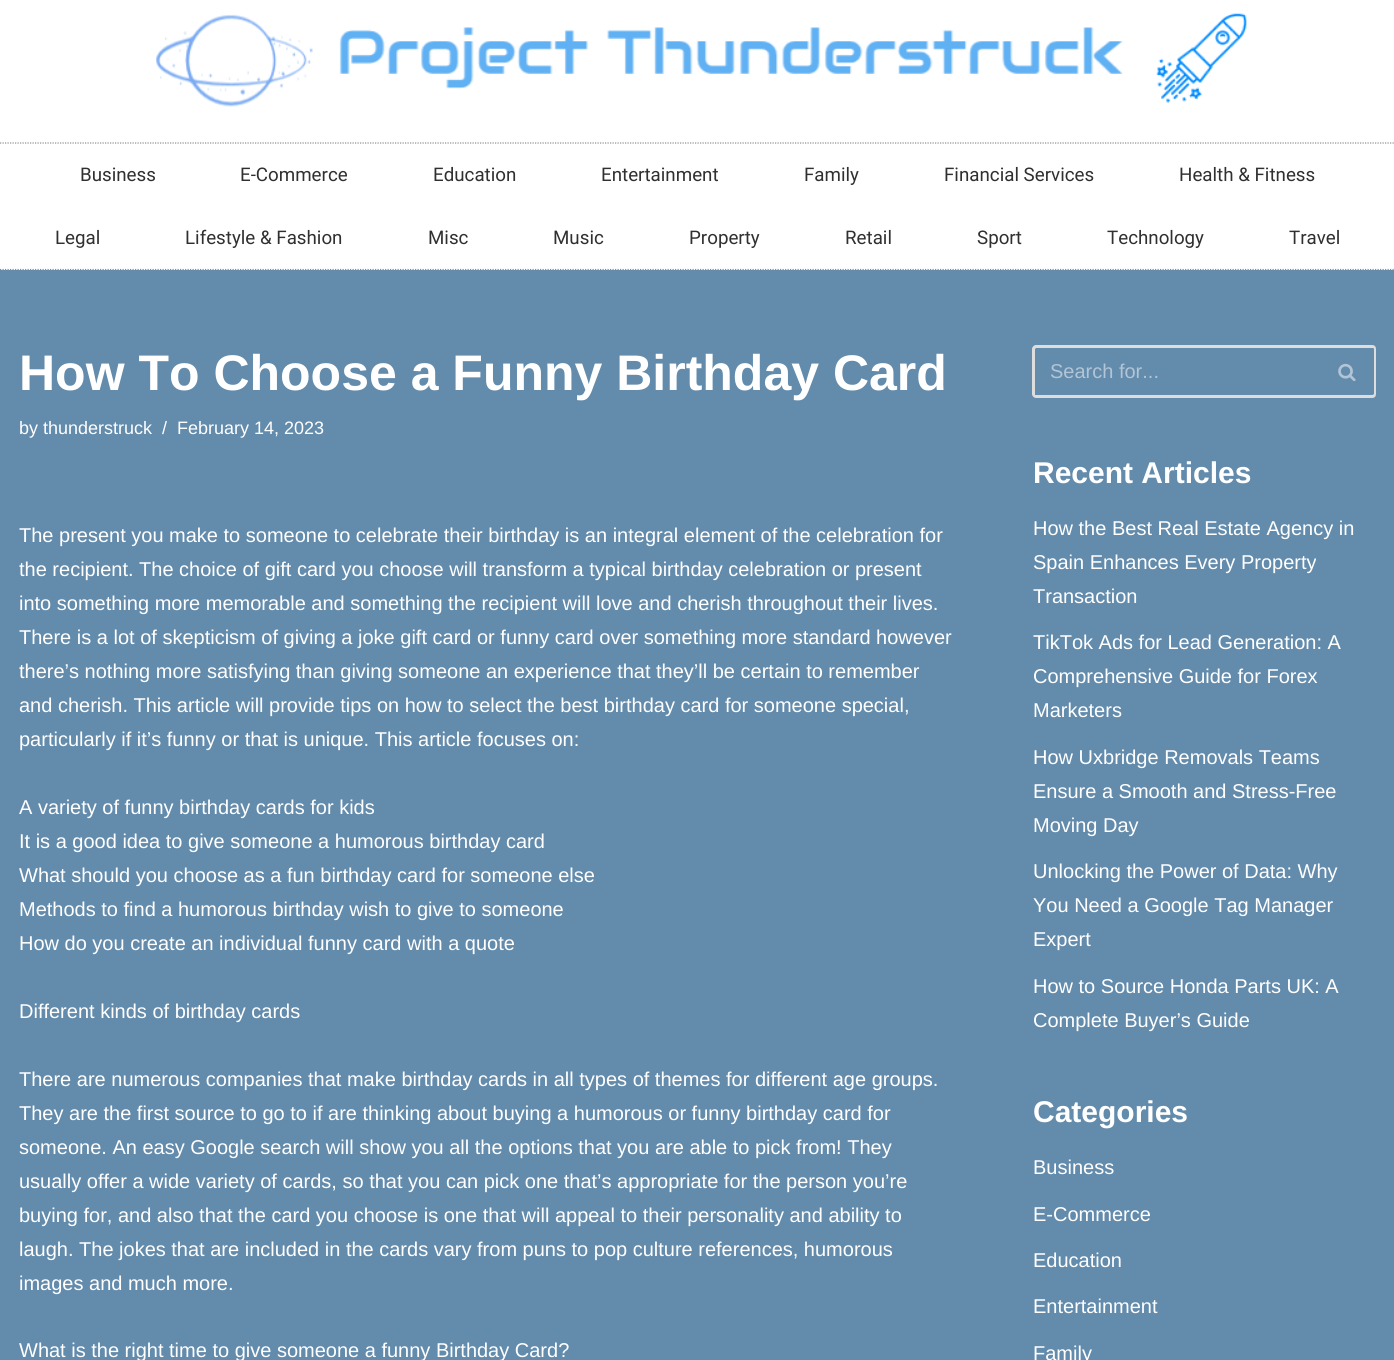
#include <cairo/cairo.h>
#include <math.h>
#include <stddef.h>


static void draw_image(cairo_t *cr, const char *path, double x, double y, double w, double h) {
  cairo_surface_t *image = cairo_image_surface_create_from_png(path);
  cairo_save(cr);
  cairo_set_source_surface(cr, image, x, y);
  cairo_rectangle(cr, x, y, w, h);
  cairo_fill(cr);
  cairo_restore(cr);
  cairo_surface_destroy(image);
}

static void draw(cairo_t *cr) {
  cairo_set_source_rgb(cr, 99 / 255.0, 139 / 255.0, 172 / 255.0);
  cairo_paint(cr);
  cairo_set_source_rgb(cr, 1, 1, 1);
  cairo_rectangle(cr, 0, 0, 1394, 270);
  cairo_fill(cr);
  draw_image(cr, "images/1.png", 156, 13, 1091, 94);
  cairo_new_path(cr);
  cairo_move_to(cr, 0, 143);
  cairo_line_to(cr, 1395, 143);
  cairo_set_source_rgb(cr, 142 / 255.0, 142 / 255.0, 142 / 255.0);
  cairo_set_line_width(cr, 1.2);
  cairo_set_dash(cr, (double[]){1.25, 1.25}, 2, 0);
  cairo_stroke(cr);
  cairo_new_path(cr);
  cairo_move_to(cr, 0, 269.5);
  cairo_line_to(cr, 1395, 269.5);
  cairo_stroke(cr);
  cairo_set_source_rgb(cr, 221 / 255.0, 221 / 255.0, 221 / 255.0);
  cairo_set_fill_rule(cr, CAIRO_FILL_RULE_EVEN_ODD);
  cairo_new_path(cr);
  cairo_move_to(cr, 1036, 345);
  cairo_line_to(cr, 1320, 345);
  cairo_line_to(cr, 1320, 398);
  cairo_line_to(cr, 1036, 398);
  cairo_curve_to(cr, 1034, 398, 1032, 396, 1032, 394);
  cairo_line_to(cr, 1032, 349);
  cairo_curve_to(cr, 1032, 347, 1034, 345, 1036, 345);
  cairo_close_path(cr);
  cairo_move_to(cr, 1036, 348);
  cairo_line_to(cr, 1320, 348);
  cairo_line_to(cr, 1320, 395);
  cairo_line_to(cr, 1035, 395);
  cairo_curve_to(cr, 1035, 394, 1035, 353, 1035, 349);
  cairo_close_path(cr);
  cairo_fill(cr);
  cairo_new_path(cr);
  cairo_move_to(cr, 1320, 345);
  cairo_line_to(cr, 1372, 345);
  cairo_curve_to(cr, 1375, 345, 1376, 347, 1376, 349);
  cairo_line_to(cr, 1376, 394);
  cairo_curve_to(cr, 1376, 396, 1375, 398, 1372, 398);
  cairo_line_to(cr, 1320, 398);
  cairo_close_path(cr);
  cairo_move_to(cr, 1320, 348);
  cairo_line_to(cr, 1372, 348);
  cairo_curve_to(cr, 1373, 348, 1374, 348, 1374, 349);
  cairo_line_to(cr, 1374, 394);
  cairo_curve_to(cr, 1374, 394, 1373, 395, 1372, 395);
  cairo_line_to(cr, 1320, 395);
  cairo_close_path(cr);
  cairo_fill(cr);
  draw_image(cr, "images/2.png", 1338, 363, 18, 18);
  cairo_select_font_face(cr, "Roboto", CAIRO_FONT_SLANT_NORMAL, CAIRO_FONT_WEIGHT_NORMAL);
  cairo_set_font_size(cr, 18.75);
  cairo_set_source_rgb(cr, 48 / 255.0, 48 / 255.0, 48 / 255.0);
  cairo_move_to(cr, 80, 181);
  cairo_show_text(cr, "Business");
  cairo_move_to(cr, 240, 181);
  cairo_show_text(cr, "E-Commerce");
  cairo_move_to(cr, 433, 181);
  cairo_show_text(cr, "Education");
  cairo_move_to(cr, 601, 181);
  cairo_show_text(cr, "Entertainment");
  cairo_move_to(cr, 804, 181);
  cairo_show_text(cr, "Family");
  cairo_move_to(cr, 944, 181);
  cairo_show_text(cr, "Financial Services");
  cairo_move_to(cr, 1179, 181);
  cairo_show_text(cr, "Health & Fitness");
  cairo_move_to(cr, 55, 244);
  cairo_show_text(cr, "Legal");
  cairo_move_to(cr, 185, 244);
  cairo_show_text(cr, "Lifestyle & Fashion");
  cairo_move_to(cr, 428, 244);
  cairo_show_text(cr, "Misc");
  cairo_move_to(cr, 553, 244);
  cairo_show_text(cr, "Music");
  cairo_move_to(cr, 689, 244);
  cairo_show_text(cr, "Property");
  cairo_move_to(cr, 845, 244);
  cairo_show_text(cr, "Retail");
  cairo_move_to(cr, 977, 244);
  cairo_show_text(cr, "Sport");
  cairo_move_to(cr, 1107, 244);
  cairo_show_text(cr, "Technology");
  cairo_move_to(cr, 1289, 244);
  cairo_show_text(cr, "Travel");
  cairo_select_font_face(cr, "Liberation Sans", CAIRO_FONT_SLANT_NORMAL, CAIRO_FONT_WEIGHT_BOLD);
  cairo_set_font_size(cr, 50);
  cairo_set_source_rgb(cr, 1, 1, 1);
  cairo_move_to(cr, 19, 390);
  cairo_show_text(cr, "How To Choose a Funny Birthday Card");
  cairo_select_font_face(cr, "Liberation Sans", CAIRO_FONT_SLANT_NORMAL, CAIRO_FONT_WEIGHT_NORMAL);
  cairo_set_font_size(cr, 18);
  cairo_move_to(cr, 19, 434);
  cairo_show_text(cr, "by thunderstruck");
  cairo_move_to(cr, 162, 434);
  cairo_show_text(cr, "/");
  cairo_move_to(cr, 177, 434);
  cairo_show_text(cr, "February 14, 2023");
  cairo_set_font_size(cr, 20);
  cairo_move_to(cr, 19, 542);
  cairo_show_text(cr, "The present you make to someone to celebrate their birthday is an integral element of the celebration for");
  cairo_move_to(cr, 19, 576);
  cairo_show_text(cr, "the recipient. The choice of gift card you choose will transform a typical birthday celebration or present");
  cairo_move_to(cr, 19, 610);
  cairo_show_text(cr, "into something more memorable and something the recipient will love and cherish throughout their lives.");
  cairo_move_to(cr, 19, 644);
  cairo_show_text(cr, "There is a lot of skepticism of giving a joke gift card or funny card over something more standard however");
  cairo_move_to(cr, 19, 678);
  cairo_show_text(cr, "there’s nothing more satisfying than giving someone an experience that they’ll be certain to remember");
  cairo_move_to(cr, 19, 712);
  cairo_show_text(cr, "and cherish. This article will provide tips on how to select the best birthday card for someone special,");
  cairo_move_to(cr, 19, 746);
  cairo_show_text(cr, "particularly if it’s funny or that is unique. This article focuses on:");
  cairo_move_to(cr, 19, 814);
  cairo_show_text(cr, "A variety of funny birthday cards for kids");
  cairo_move_to(cr, 19, 848);
  cairo_show_text(cr, "It is a good idea to give someone a humorous birthday card");
  cairo_move_to(cr, 19, 882);
  cairo_show_text(cr, "What should you choose as a fun birthday card for someone else");
  cairo_move_to(cr, 19, 916);
  cairo_show_text(cr, "Methods to find a humorous birthday wish to give to someone");
  cairo_move_to(cr, 19, 950);
  cairo_show_text(cr, "How do you create an individual funny card with a quote");
  cairo_move_to(cr, 19, 1018);
  cairo_show_text(cr, "Different kinds of birthday cards");
  cairo_move_to(cr, 19, 1086);
  cairo_show_text(cr, "There are numerous companies that make birthday cards in all types of themes for different age groups.");
  cairo_move_to(cr, 19, 1120);
  cairo_show_text(cr, "They are the first source to go to if are thinking about buying a humorous or funny birthday card for");
  cairo_move_to(cr, 19, 1154);
  cairo_show_text(cr, "someone. An easy Google search will show you all the options that you are able to pick from! They");
  cairo_move_to(cr, 19, 1188);
  cairo_show_text(cr, "usually offer a wide variety of cards, so that you can pick one that’s appropriate for the person you’re");
  cairo_move_to(cr, 19, 1222);
  cairo_show_text(cr, "buying for, and also that the card you choose is one that will appeal to their personality and ability to");
  cairo_move_to(cr, 19, 1256);
  cairo_show_text(cr, "laugh. The jokes that are included in the cards vary from puns to pop culture references, humorous");
  cairo_move_to(cr, 19, 1290);
  cairo_show_text(cr, "images and much more.");
  cairo_move_to(cr, 19, 1357);
  cairo_show_text(cr, "What is the right time to give someone a funny Birthday Card?");
  cairo_set_source_rgb(cr, 177 / 255.0, 197 / 255.0, 214 / 255.0);
  cairo_move_to(cr, 1050, 378);
  cairo_show_text(cr, "Search for...");
  cairo_select_font_face(cr, "Liberation Sans", CAIRO_FONT_SLANT_NORMAL, CAIRO_FONT_WEIGHT_BOLD);
  cairo_set_font_size(cr, 30);
  cairo_set_source_rgb(cr, 1, 1, 1);
  cairo_move_to(cr, 1033, 483);
  cairo_show_text(cr, "Recent Articles");
  cairo_select_font_face(cr, "Liberation Sans", CAIRO_FONT_SLANT_NORMAL, CAIRO_FONT_WEIGHT_NORMAL);
  cairo_set_font_size(cr, 20);
  cairo_move_to(cr, 1033, 535);
  cairo_show_text(cr, "How the Best Real Estate Agency in");
  cairo_move_to(cr, 1033, 569);
  cairo_show_text(cr, "Spain Enhances Every Property");
  cairo_move_to(cr, 1033, 603);
  cairo_show_text(cr, "Transaction");
  cairo_move_to(cr, 1033, 649);
  cairo_show_text(cr, "TikTok Ads for Lead Generation: A");
  cairo_move_to(cr, 1033, 683);
  cairo_show_text(cr, "Comprehensive Guide for Forex");
  cairo_move_to(cr, 1033, 717);
  cairo_show_text(cr, "Marketers");
  cairo_move_to(cr, 1033, 764);
  cairo_show_text(cr, "How Uxbridge Removals Teams");
  cairo_move_to(cr, 1033, 798);
  cairo_show_text(cr, "Ensure a Smooth and Stress-Free");
  cairo_move_to(cr, 1033, 832);
  cairo_show_text(cr, "Moving Day");
  cairo_move_to(cr, 1033, 878);
  cairo_show_text(cr, "Unlocking the Power of Data: Why");
  cairo_move_to(cr, 1033, 912);
  cairo_show_text(cr, "You Need a Google Tag Manager");
  cairo_move_to(cr, 1033, 946);
  cairo_show_text(cr, "Expert");
  cairo_move_to(cr, 1033, 993);
  cairo_show_text(cr, "How to Source Honda Parts UK: A");
  cairo_move_to(cr, 1033, 1027);
  cairo_show_text(cr, "Complete Buyer’s Guide");
  cairo_select_font_face(cr, "Liberation Sans", CAIRO_FONT_SLANT_NORMAL, CAIRO_FONT_WEIGHT_BOLD);
  cairo_set_font_size(cr, 30);
  cairo_move_to(cr, 1033, 1122);
  cairo_show_text(cr, "Categories");
  cairo_select_font_face(cr, "Liberation Sans", CAIRO_FONT_SLANT_NORMAL, CAIRO_FONT_WEIGHT_NORMAL);
  cairo_set_font_size(cr, 20);
  cairo_move_to(cr, 1033, 1174);
  cairo_show_text(cr, "Business");
  cairo_move_to(cr, 1033, 1221);
  cairo_show_text(cr, "E-Commerce");
  cairo_move_to(cr, 1033, 1267);
  cairo_show_text(cr, "Education");
  cairo_move_to(cr, 1033, 1313);
  cairo_show_text(cr, "Entertainment");
  cairo_move_to(cr, 1033, 1360);
  cairo_show_text(cr, "Family");
}

int main(void) {
  cairo_surface_t *surface = cairo_image_surface_create(CAIRO_FORMAT_RGB24, 1394, 1360);
  cairo_t *cr = cairo_create(surface);
  cairo_font_options_t *options = cairo_font_options_create();
  cairo_font_options_set_hint_metrics(options, CAIRO_HINT_METRICS_OFF);
  cairo_font_options_set_hint_style(options, CAIRO_HINT_STYLE_NONE);
  cairo_set_font_options(cr, options);
  cairo_set_miter_limit(cr, 4);
  draw(cr);
  cairo_surface_write_to_png(surface, "out.png");
  cairo_font_options_destroy(options);
  cairo_destroy(cr);
  cairo_surface_destroy(surface);
  return 0;
}
